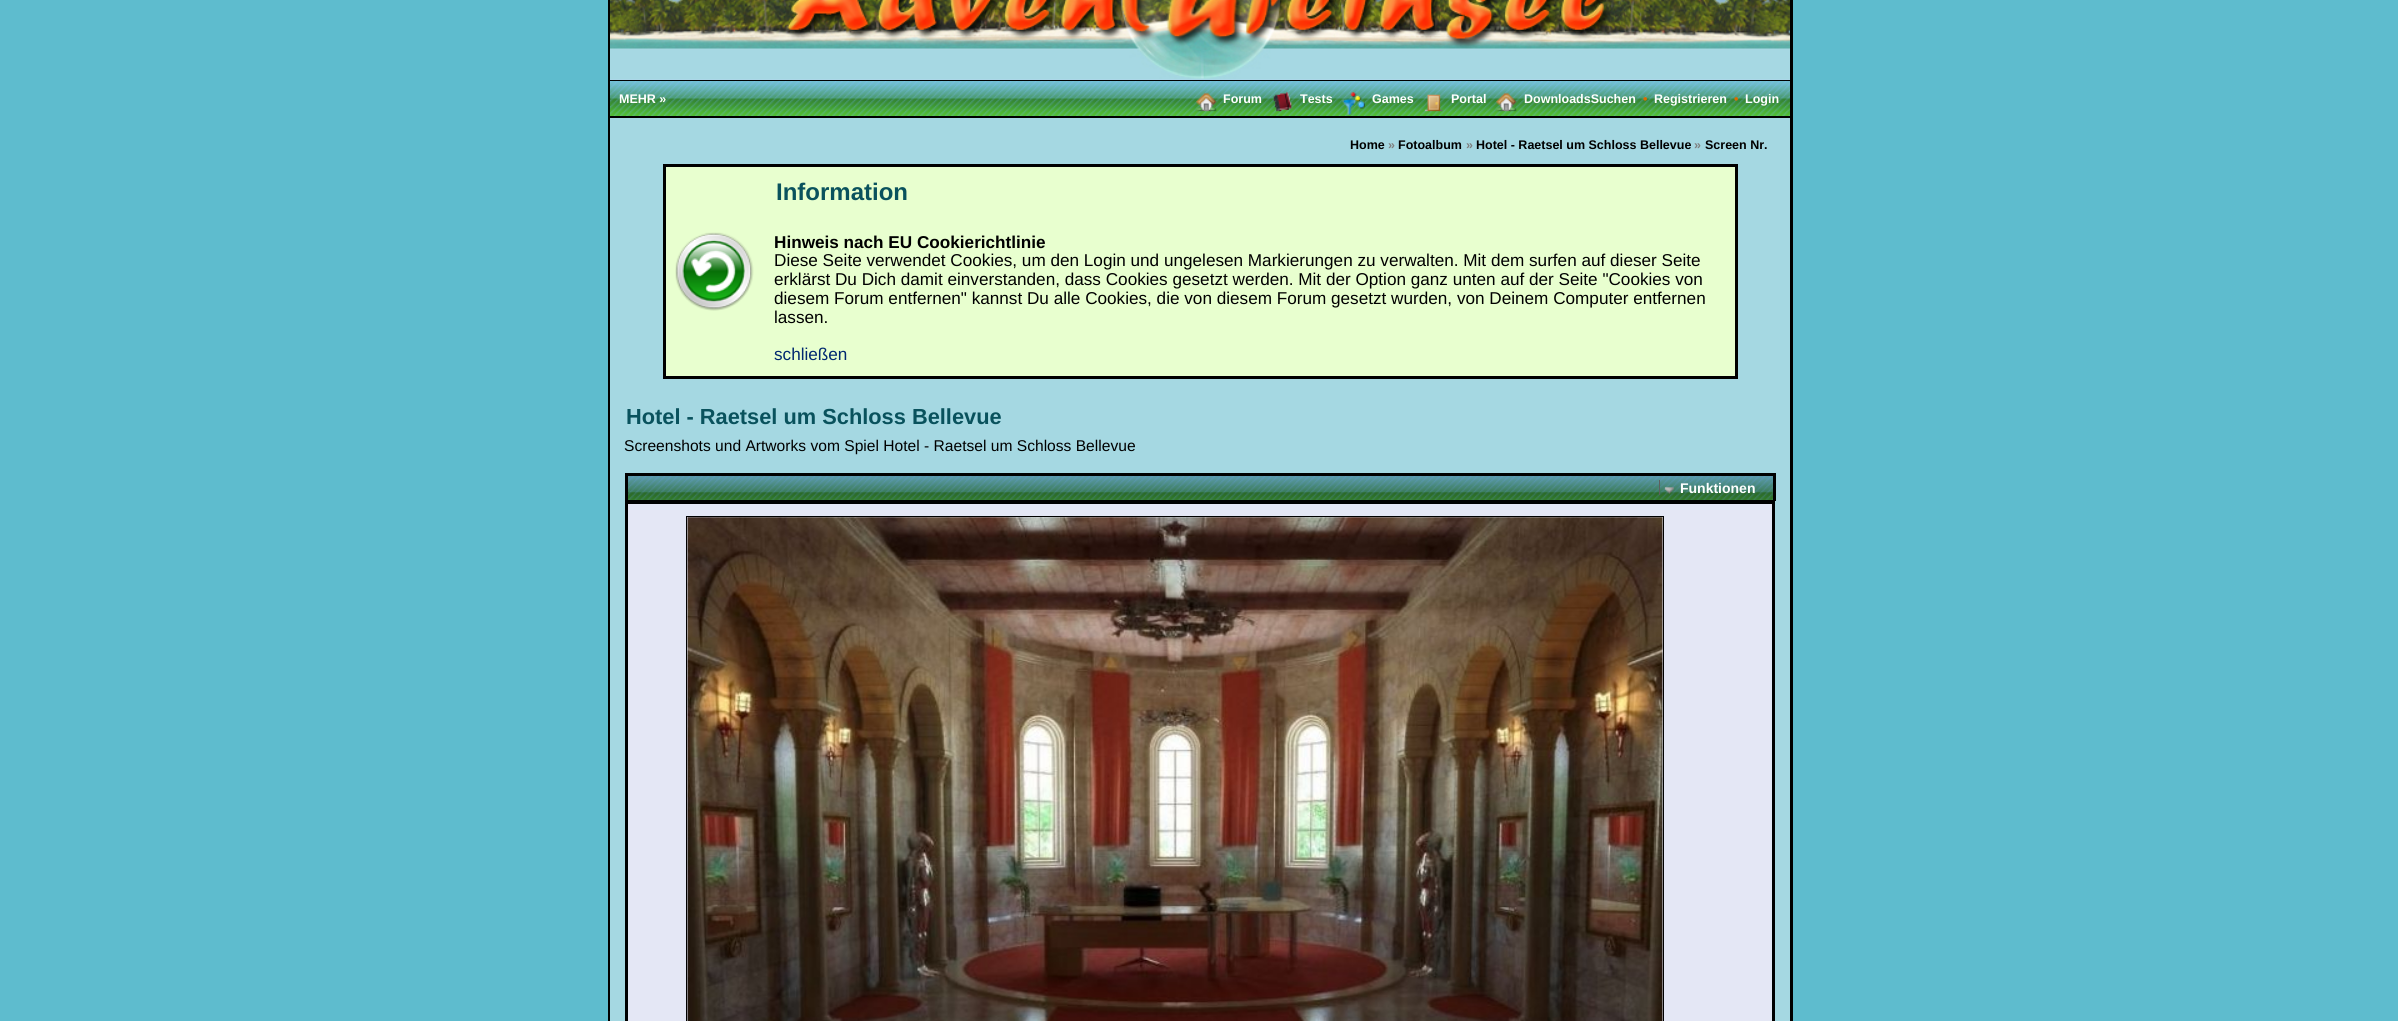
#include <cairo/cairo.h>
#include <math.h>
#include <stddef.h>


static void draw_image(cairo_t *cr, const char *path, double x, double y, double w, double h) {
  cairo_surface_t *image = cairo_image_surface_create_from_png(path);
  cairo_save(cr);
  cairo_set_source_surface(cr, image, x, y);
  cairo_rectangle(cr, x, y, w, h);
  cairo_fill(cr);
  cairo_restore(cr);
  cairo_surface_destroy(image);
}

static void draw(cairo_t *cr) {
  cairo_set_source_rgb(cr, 94 / 255.0, 188 / 255.0, 206 / 255.0);
  cairo_paint(cr);
  cairo_rectangle(cr, 609.5, -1.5, 1182, 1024);
  cairo_set_source_rgb(cr, 0, 0, 0);
  cairo_set_line_width(cr, 3);
  cairo_stroke(cr);
  cairo_set_source_rgb(cr, 180 / 255.0, 214 / 255.0, 239 / 255.0);
  cairo_rectangle(cr, 610, 79, 1180, 1);
  cairo_fill(cr);
  draw_image(cr, "images/1.png", 610, 0, 1180, 80);
  cairo_set_source_rgb(cr, 0, 0, 0);
  cairo_rectangle(cr, 611, 80, 1179, 38);
  cairo_fill(cr);
  draw_image(cr, "images/2.png", 610, 81, 1180, 35);
  draw_image(cr, "images/3.png", 1196, 92, 21, 20);
  draw_image(cr, "images/4.png", 1273, 92, 19, 20);
  draw_image(cr, "images/5.png", 1342, 92, 23, 23);
  draw_image(cr, "images/6.png", 1424, 94, 19, 18);
  draw_image(cr, "images/7.png", 1496, 92, 21, 20);
  cairo_set_source_rgb(cr, 165 / 255.0, 216 / 255.0, 226 / 255.0);
  cairo_rectangle(cr, 610, 118, 1180, 903);
  cairo_fill(cr);
  cairo_set_source_rgb(cr, 232 / 255.0, 1, 207 / 255.0);
  cairo_rectangle(cr, 666, 167, 1069, 209);
  cairo_fill(cr);
  draw_image(cr, "images/8.png", 675, 232, 79, 79);
  cairo_rectangle(cr, 664.5, 165.5, 1072, 212);
  cairo_set_source_rgb(cr, 0, 0, 0);
  cairo_stroke(cr);
  draw_image(cr, "images/9.png", 628, 476, 1145, 24);
  cairo_rectangle(cr, 625, 473, 1150, 3);
  cairo_fill(cr);
  cairo_rectangle(cr, 1773, 473, 3, 28);
  cairo_fill(cr);
  cairo_rectangle(cr, 625, 500, 1150, 1);
  cairo_fill(cr);
  cairo_rectangle(cr, 625, 473, 3, 28);
  cairo_fill(cr);
  draw_image(cr, "images/10.png", 1664, 487, 10, 7);
  cairo_set_source_rgb(cr, 95 / 255.0, 95 / 255.0, 95 / 255.0);
  cairo_rectangle(cr, 1659, 480, 1, 15);
  cairo_fill(cr);
  cairo_set_source_rgb(cr, 228 / 255.0, 231 / 255.0, 245 / 255.0);
  cairo_rectangle(cr, 626.5, 502.5, 1147, 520);
  cairo_fill_preserve(cr);
  cairo_set_source_rgb(cr, 0, 0, 0);
  cairo_stroke(cr);
  cairo_rectangle(cr, 686.5, 516.5, 977, 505);
  cairo_set_line_width(cr, 1);
  cairo_stroke(cr);
  draw_image(cr, "images/11.png", 687, 517, 976, 504);
  cairo_select_font_face(cr, "Liberation Sans", CAIRO_FONT_SLANT_NORMAL, CAIRO_FONT_WEIGHT_BOLD);
  cairo_set_font_size(cr, 12.5);
  cairo_set_source_rgb(cr, 1, 1, 1);
  cairo_move_to(cr, 619, 103);
  cairo_show_text(cr, "MEHR »");
  cairo_move_to(cr, 1223, 103);
  cairo_show_text(cr, "Forum");
  cairo_move_to(cr, 1300, 103);
  cairo_show_text(cr, "Tests");
  cairo_move_to(cr, 1372, 103);
  cairo_show_text(cr, "Games");
  cairo_move_to(cr, 1451, 103);
  cairo_show_text(cr, "Portal");
  cairo_move_to(cr, 1524, 103);
  cairo_show_text(cr, "DownloadsSuchen");
  cairo_set_source_rgb(cr, 221 / 255.0, 105 / 255.0, 0);
  cairo_move_to(cr, 1643, 103);
  cairo_show_text(cr, "•");
  cairo_set_source_rgb(cr, 1, 1, 1);
  cairo_move_to(cr, 1654, 103);
  cairo_show_text(cr, "Registrieren");
  cairo_set_source_rgb(cr, 221 / 255.0, 105 / 255.0, 0);
  cairo_move_to(cr, 1734, 103);
  cairo_show_text(cr, "•");
  cairo_set_source_rgb(cr, 1, 1, 1);
  cairo_move_to(cr, 1745, 103);
  cairo_show_text(cr, "Login");
  cairo_set_source_rgb(cr, 0, 0, 0);
  cairo_move_to(cr, 1350, 149);
  cairo_show_text(cr, "Home");
  cairo_set_source_rgb(cr, 127 / 255.0, 127 / 255.0, 127 / 255.0);
  cairo_move_to(cr, 1388, 149);
  cairo_show_text(cr, "»");
  cairo_set_source_rgb(cr, 0, 0, 0);
  cairo_move_to(cr, 1398, 149);
  cairo_show_text(cr, "Fotoalbum");
  cairo_set_source_rgb(cr, 127 / 255.0, 127 / 255.0, 127 / 255.0);
  cairo_move_to(cr, 1466, 149);
  cairo_show_text(cr, "»");
  cairo_set_source_rgb(cr, 0, 0, 0);
  cairo_move_to(cr, 1476, 149);
  cairo_show_text(cr, "Hotel - Raetsel um Schloss Bellevue");
  cairo_set_source_rgb(cr, 127 / 255.0, 127 / 255.0, 127 / 255.0);
  cairo_move_to(cr, 1694, 149);
  cairo_show_text(cr, "»");
  cairo_set_source_rgb(cr, 0, 0, 0);
  cairo_move_to(cr, 1705, 149);
  cairo_show_text(cr, "Screen Nr.");
  cairo_set_font_size(cr, 24);
  cairo_set_source_rgb(cr, 9 / 255.0, 82 / 255.0, 93 / 255.0);
  cairo_move_to(cr, 776, 200);
  cairo_show_text(cr, "Information");
  cairo_set_font_size(cr, 17.15);
  cairo_set_source_rgb(cr, 0, 0, 0);
  cairo_move_to(cr, 774, 248);
  cairo_show_text(cr, "Hinweis nach EU Cookierichtlinie");
  cairo_select_font_face(cr, "Liberation Sans", CAIRO_FONT_SLANT_NORMAL, CAIRO_FONT_WEIGHT_NORMAL);
  cairo_move_to(cr, 774, 266);
  cairo_show_text(cr, "Diese Seite verwendet Cookies, um den Login und ungelesen Markierungen zu verwalten. Mit dem surfen auf dieser Seite");
  cairo_move_to(cr, 774, 285);
  cairo_show_text(cr, "erklärst Du Dich damit einverstanden, dass Cookies gesetzt werden. Mit der Option ganz unten auf der Seite \"Cookies von");
  cairo_move_to(cr, 774, 304);
  cairo_show_text(cr, "diesem Forum entfernen\" kannst Du alle Cookies, die von diesem Forum gesetzt wurden, von Deinem Computer entfernen");
  cairo_move_to(cr, 774, 323);
  cairo_show_text(cr, "lassen.");
  cairo_set_source_rgb(cr, 0, 40 / 255.0, 111 / 255.0);
  cairo_move_to(cr, 774, 360);
  cairo_show_text(cr, "schließen");
  cairo_select_font_face(cr, "Liberation Sans", CAIRO_FONT_SLANT_NORMAL, CAIRO_FONT_WEIGHT_BOLD);
  cairo_set_font_size(cr, 21.8);
  cairo_set_source_rgb(cr, 9 / 255.0, 82 / 255.0, 93 / 255.0);
  cairo_move_to(cr, 626, 424);
  cairo_show_text(cr, "Hotel - Raetsel um Schloss Bellevue");
  cairo_select_font_face(cr, "Liberation Sans", CAIRO_FONT_SLANT_NORMAL, CAIRO_FONT_WEIGHT_NORMAL);
  cairo_set_font_size(cr, 15.6);
  cairo_set_source_rgb(cr, 0, 0, 0);
  cairo_move_to(cr, 624, 451);
  cairo_show_text(cr, "Screenshots und Artworks vom Spiel Hotel - Raetsel um Schloss Bellevue");
  cairo_select_font_face(cr, "Liberation Sans", CAIRO_FONT_SLANT_NORMAL, CAIRO_FONT_WEIGHT_BOLD);
  cairo_set_font_size(cr, 14);
  cairo_set_source_rgb(cr, 1, 1, 1);
  cairo_move_to(cr, 1680, 493);
  cairo_show_text(cr, "Funktionen");
}

int main(void) {
  cairo_surface_t *surface = cairo_image_surface_create(CAIRO_FORMAT_RGB24, 2398, 1021);
  cairo_t *cr = cairo_create(surface);
  cairo_font_options_t *options = cairo_font_options_create();
  cairo_font_options_set_hint_metrics(options, CAIRO_HINT_METRICS_OFF);
  cairo_font_options_set_hint_style(options, CAIRO_HINT_STYLE_NONE);
  cairo_set_font_options(cr, options);
  cairo_set_miter_limit(cr, 4);
  draw(cr);
  cairo_surface_write_to_png(surface, "out.png");
  cairo_font_options_destroy(options);
  cairo_destroy(cr);
  cairo_surface_destroy(surface);
  return 0;
}
